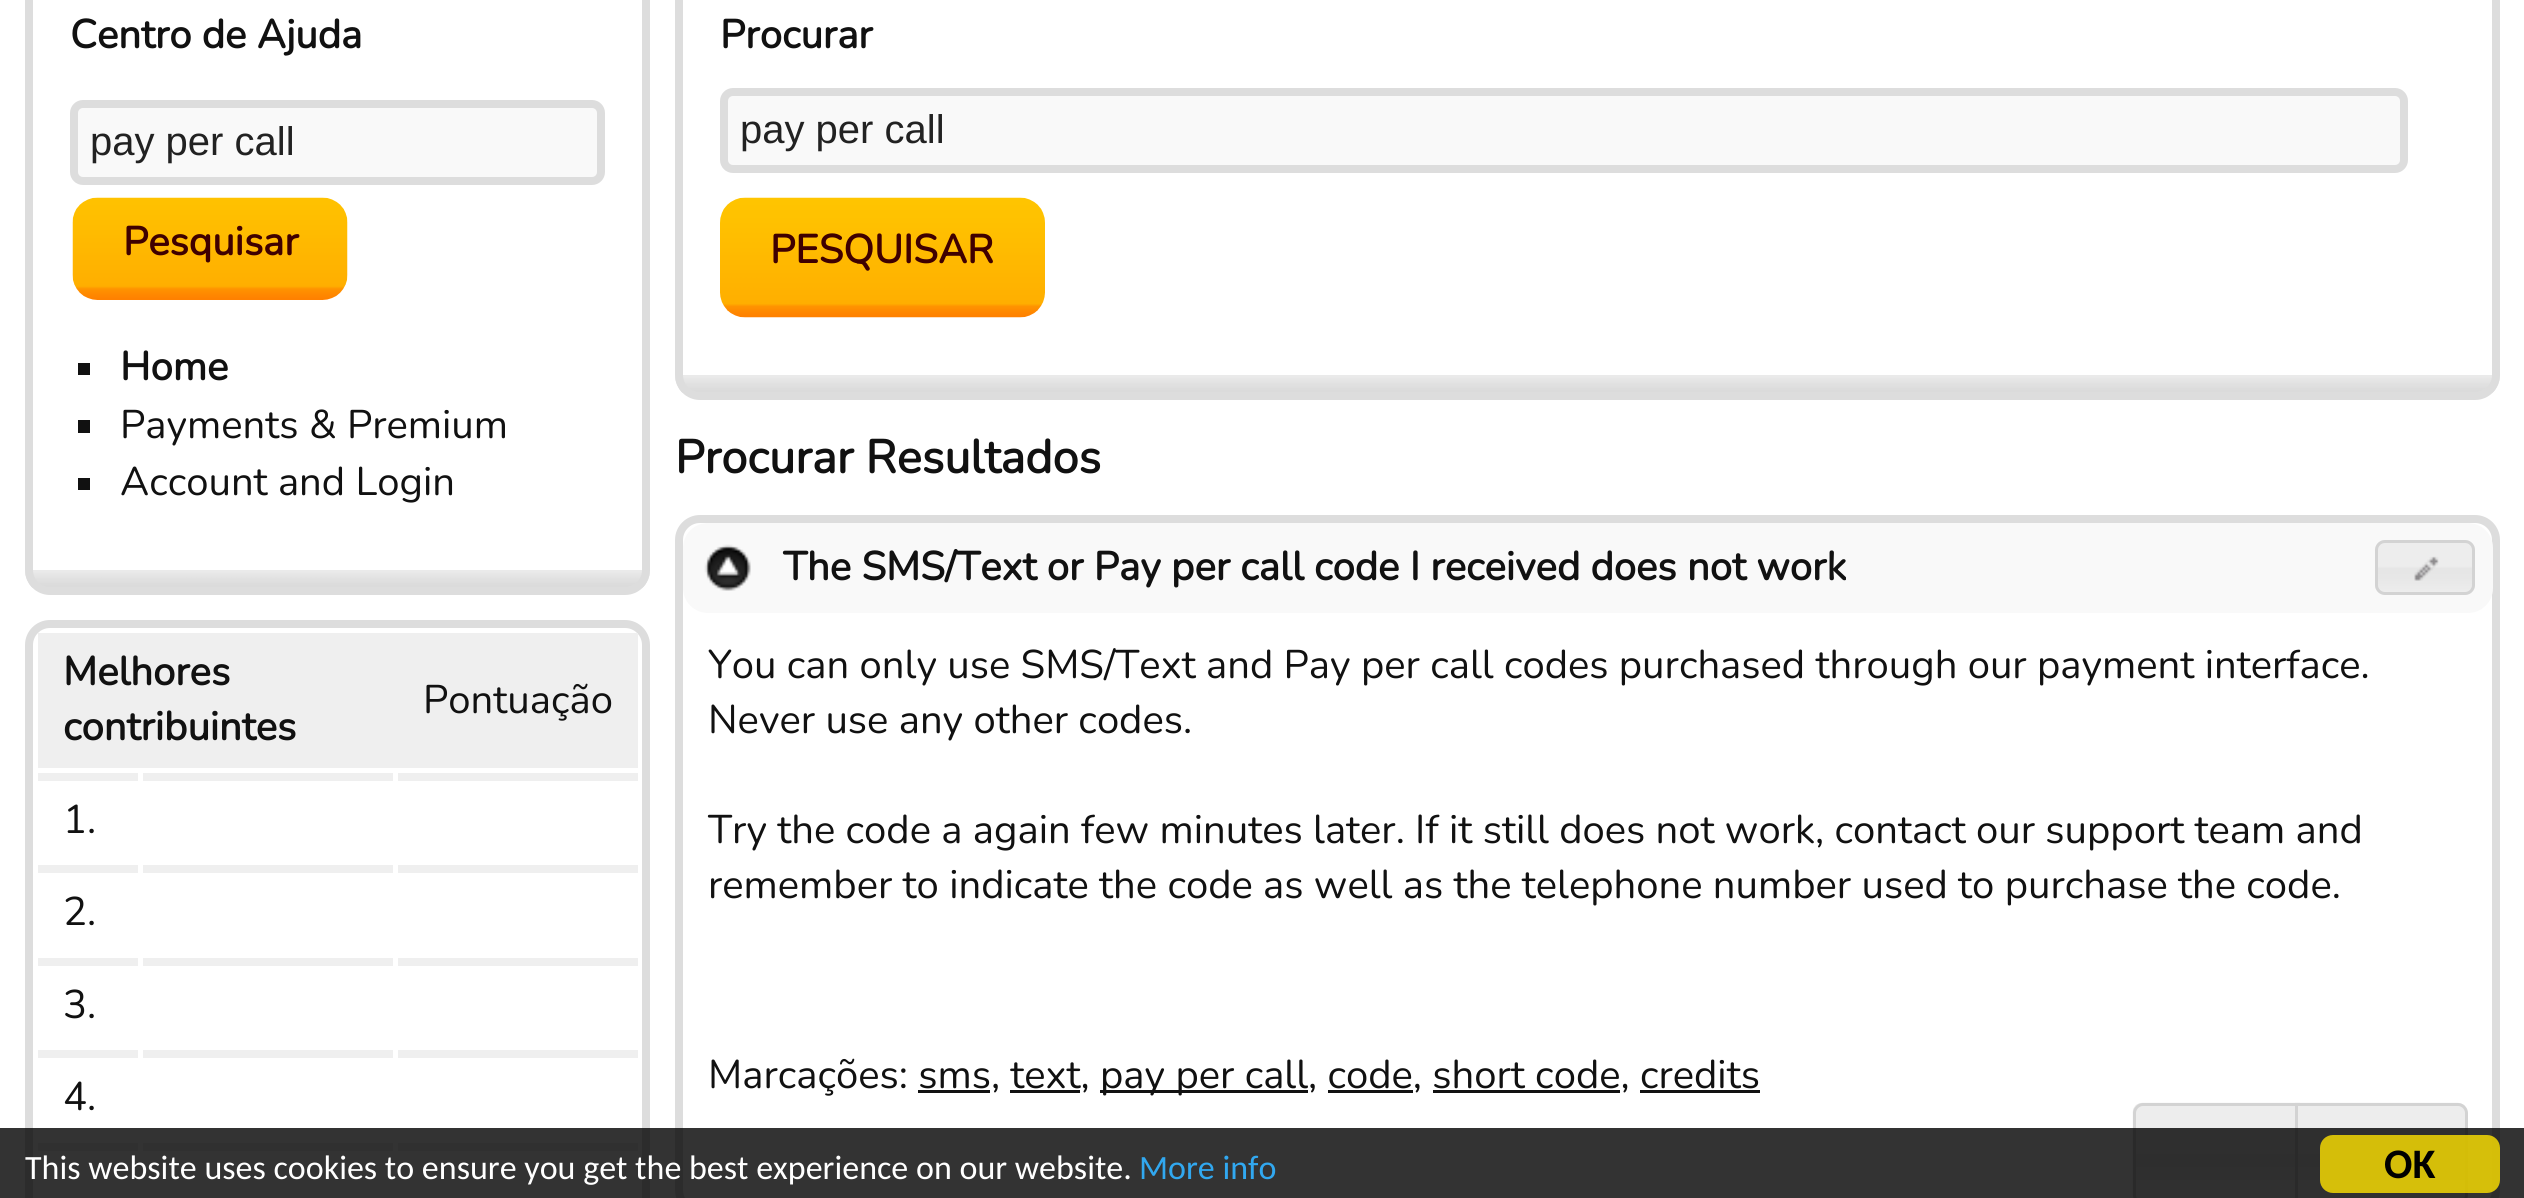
#include <cairo/cairo.h>
#include <math.h>
#include <stddef.h>


static void rounded_rect(cairo_t *cr, double x, double y, double w, double h, double r) {
  cairo_new_sub_path(cr);
  cairo_arc(cr, x + w - r, y + h - r, r, 0, M_PI / 2);
  cairo_arc(cr, x + r, y + h - r, r, M_PI / 2, M_PI);
  cairo_arc(cr, x + r, y + r, r, M_PI, 1.5 * M_PI);
  cairo_arc(cr, x + w - r, y + r, r, 1.5 * M_PI, 2 * M_PI);
  cairo_close_path(cr);
}

static void draw_image(cairo_t *cr, const char *path, double x, double y, double w, double h) {
  cairo_surface_t *image = cairo_image_surface_create_from_png(path);
  cairo_save(cr);
  cairo_set_source_surface(cr, image, x, y);
  cairo_rectangle(cr, x, y, w, h);
  cairo_fill(cr);
  cairo_restore(cr);
  cairo_surface_destroy(image);
}

static void draw(cairo_t *cr) {
  cairo_set_source_rgb(cr, 1, 1, 1);
  cairo_paint(cr);
  draw_image(cr, "images/1.png", 25, 570, 625, 18);
  rounded_rect(cr, 29, -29, 617, 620, 21);
  cairo_set_source_rgb(cr, 221 / 255.0, 221 / 255.0, 221 / 255.0);
  cairo_set_line_width(cr, 8);
  cairo_stroke(cr);
  cairo_set_source_rgb(cr, 249 / 255.0, 249 / 255.0, 249 / 255.0);
  rounded_rect(cr, 74, 104, 527, 77, 9);
  cairo_fill_preserve(cr);
  cairo_set_source_rgb(cr, 221 / 255.0, 221 / 255.0, 221 / 255.0);
  cairo_stroke(cr);
  draw_image(cr, "images/2.png", 72, 197, 276, 103);
  cairo_set_source_rgb(cr, 17 / 255.0, 17 / 255.0, 17 / 255.0);
  cairo_rectangle(cr, 78, 363, 12, 12);
  cairo_fill(cr);
  cairo_rectangle(cr, 78, 420, 12, 13);
  cairo_fill(cr);
  cairo_rectangle(cr, 78, 478, 12, 12);
  cairo_fill(cr);
  rounded_rect(cr, 29, 624, 617, 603, 21);
  cairo_set_source_rgb(cr, 221 / 255.0, 221 / 255.0, 221 / 255.0);
  cairo_stroke(cr);
  cairo_set_source_rgb(cr, 239 / 255.0, 239 / 255.0, 239 / 255.0);
  cairo_rectangle(cr, 38, 633, 600, 135);
  cairo_fill(cr);
  cairo_rectangle(cr, 143, 773, 250, 8);
  cairo_fill(cr);
  cairo_rectangle(cr, 398, 773, 240, 8);
  cairo_fill(cr);
  cairo_rectangle(cr, 38, 773, 100, 8);
  cairo_fill(cr);
  cairo_rectangle(cr, 143, 865, 250, 8);
  cairo_fill(cr);
  cairo_rectangle(cr, 398, 865, 240, 8);
  cairo_fill(cr);
  cairo_rectangle(cr, 38, 865, 100, 8);
  cairo_fill(cr);
  cairo_rectangle(cr, 143, 958, 250, 8);
  cairo_fill(cr);
  cairo_rectangle(cr, 398, 958, 240, 8);
  cairo_fill(cr);
  cairo_rectangle(cr, 38, 958, 100, 8);
  cairo_fill(cr);
  cairo_rectangle(cr, 143, 1050, 250, 8);
  cairo_fill(cr);
  cairo_rectangle(cr, 398, 1050, 240, 8);
  cairo_fill(cr);
  cairo_rectangle(cr, 38, 1050, 100, 8);
  cairo_fill(cr);
  cairo_rectangle(cr, 38, 1143, 100, 8);
  cairo_fill(cr);
  cairo_rectangle(cr, 143, 1143, 250, 8);
  cairo_fill(cr);
  cairo_rectangle(cr, 398, 1143, 240, 8);
  cairo_fill(cr);
  draw_image(cr, "images/3.png", 675, 375, 1825, 18);
  rounded_rect(cr, 679, -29, 1817, 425, 21);
  cairo_set_source_rgb(cr, 221 / 255.0, 221 / 255.0, 221 / 255.0);
  cairo_stroke(cr);
  cairo_set_source_rgb(cr, 249 / 255.0, 249 / 255.0, 249 / 255.0);
  rounded_rect(cr, 724, 92, 1680, 77, 9);
  cairo_fill_preserve(cr);
  cairo_set_source_rgb(cr, 221 / 255.0, 221 / 255.0, 221 / 255.0);
  cairo_stroke(cr);
  draw_image(cr, "images/4.png", 720, 197, 325, 121);
  rounded_rect(cr, 679, 519, 1817, 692, 21);
  cairo_stroke(cr);
  cairo_set_source_rgb(cr, 249 / 255.0, 249 / 255.0, 249 / 255.0);
  rounded_rect(cr, 683, 523, 1810, 90, 25);
  cairo_fill(cr);
  draw_image(cr, "images/5.png", 704, 544, 47, 47);
  draw_image(cr, "images/6.png", 2375, 540, 100, 55);
  rounded_rect(cr, 2376.5, 541.5, 97, 52, 8.5);
  cairo_set_source_rgb(cr, 211 / 255.0, 211 / 255.0, 211 / 255.0);
  cairo_set_line_width(cr, 3);
  cairo_stroke(cr);
  draw_image(cr, "images/7.png", 2414, 556, 25, 25);
  cairo_set_source_rgb(cr, 17 / 255.0, 17 / 255.0, 17 / 255.0);
  cairo_rectangle(cr, 918, 1090, 72, 3);
  cairo_fill(cr);
  cairo_rectangle(cr, 1010, 1090, 70, 3);
  cairo_fill(cr);
  cairo_rectangle(cr, 1100, 1090, 208, 3);
  cairo_fill(cr);
  cairo_rectangle(cr, 1328, 1090, 85, 3);
  cairo_fill(cr);
  cairo_rectangle(cr, 1433, 1090, 187, 3);
  cairo_fill(cr);
  cairo_rectangle(cr, 1640, 1090, 120, 3);
  cairo_fill(cr);
  draw_image(cr, "images/8.png", 2132, 1102, 168, 96);
  cairo_new_path(cr);
  cairo_move_to(cr, 2143, 1104.5);
  cairo_line_to(cr, 2298.5, 1104.5);
  cairo_line_to(cr, 2298.5, 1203.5);
  cairo_line_to(cr, 2143, 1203.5);
  cairo_curve_to(cr, 2138.5, 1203.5, 2134.5, 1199.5, 2134.5, 1195);
  cairo_line_to(cr, 2134.5, 1113);
  cairo_curve_to(cr, 2134.5, 1108.5, 2138.5, 1104.5, 2143, 1104.5);
  cairo_close_path(cr);
  cairo_set_source_rgb(cr, 211 / 255.0, 211 / 255.0, 211 / 255.0);
  cairo_stroke(cr);
  draw_image(cr, "images/9.png", 2295, 1102, 172, 96);
  cairo_new_path(cr);
  cairo_move_to(cr, 2296.5, 1104.5);
  cairo_line_to(cr, 2458, 1104.5);
  cairo_curve_to(cr, 2462.5, 1104.5, 2466.5, 1108.5, 2466.5, 1113);
  cairo_line_to(cr, 2466.5, 1195);
  cairo_curve_to(cr, 2466.5, 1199.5, 2462.5, 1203.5, 2458, 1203.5);
  cairo_line_to(cr, 2296.5, 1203.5);
  cairo_close_path(cr);
  cairo_stroke(cr);
  cairo_set_source_rgba(cr, 0, 0, 0, 0.8);
  cairo_rectangle(cr, 0, 1128, 2524, 70);
  cairo_fill(cr);
  cairo_set_source_rgba(cr, 1, 226 / 255.0, 0, 0.8);
  rounded_rect(cr, 2320, 1135, 180, 58, 13);
  cairo_fill(cr);
  cairo_select_font_face(cr, "Nunito", CAIRO_FONT_SLANT_NORMAL, CAIRO_FONT_WEIGHT_BOLD);
  cairo_set_font_size(cr, 40);
  cairo_set_source_rgb(cr, 17 / 255.0, 17 / 255.0, 17 / 255.0);
  cairo_move_to(cr, 70, 48);
  cairo_show_text(cr, "Centro de Ajuda");
  cairo_select_font_face(cr, "Liberation Sans", CAIRO_FONT_SLANT_NORMAL, CAIRO_FONT_WEIGHT_NORMAL);
  cairo_set_source_rgb(cr, 34 / 255.0, 34 / 255.0, 34 / 255.0);
  cairo_move_to(cr, 90, 155);
  cairo_show_text(cr, "pay per call");
  cairo_select_font_face(cr, "Nunito", CAIRO_FONT_SLANT_NORMAL, CAIRO_FONT_WEIGHT_BOLD);
  cairo_set_source_rgb(cr, 63 / 255.0, 0, 0);
  cairo_move_to(cr, 123, 255);
  cairo_show_text(cr, "Pesquisar");
  cairo_set_source_rgb(cr, 17 / 255.0, 17 / 255.0, 17 / 255.0);
  cairo_move_to(cr, 120, 380);
  cairo_show_text(cr, "Home");
  cairo_select_font_face(cr, "Nunito ExtraLight", CAIRO_FONT_SLANT_NORMAL, CAIRO_FONT_WEIGHT_NORMAL);
  cairo_move_to(cr, 120, 438);
  cairo_show_text(cr, "Payments & Premium");
  cairo_move_to(cr, 120, 495);
  cairo_show_text(cr, "Account and Login");
  cairo_select_font_face(cr, "Nunito", CAIRO_FONT_SLANT_NORMAL, CAIRO_FONT_WEIGHT_BOLD);
  cairo_move_to(cr, 63, 685);
  cairo_show_text(cr, "Melhores");
  cairo_move_to(cr, 63, 740);
  cairo_show_text(cr, "contribuintes");
  cairo_select_font_face(cr, "Nunito ExtraLight", CAIRO_FONT_SLANT_NORMAL, CAIRO_FONT_WEIGHT_NORMAL);
  cairo_move_to(cr, 423, 713);
  cairo_show_text(cr, "Pontuação");
  cairo_move_to(cr, 63, 833);
  cairo_show_text(cr, "1.");
  cairo_move_to(cr, 63, 925);
  cairo_show_text(cr, "2.");
  cairo_move_to(cr, 63, 1018);
  cairo_show_text(cr, "3.");
  cairo_move_to(cr, 63, 1110);
  cairo_show_text(cr, "4.");
  cairo_select_font_face(cr, "Nunito", CAIRO_FONT_SLANT_NORMAL, CAIRO_FONT_WEIGHT_BOLD);
  cairo_move_to(cr, 720, 48);
  cairo_show_text(cr, "Procurar");
  cairo_select_font_face(cr, "Liberation Sans", CAIRO_FONT_SLANT_NORMAL, CAIRO_FONT_WEIGHT_NORMAL);
  cairo_set_source_rgb(cr, 34 / 255.0, 34 / 255.0, 34 / 255.0);
  cairo_move_to(cr, 740, 143);
  cairo_show_text(cr, "pay per call");
  cairo_select_font_face(cr, "Nunito", CAIRO_FONT_SLANT_NORMAL, CAIRO_FONT_WEIGHT_BOLD);
  cairo_set_source_rgb(cr, 63 / 255.0, 0, 0);
  cairo_move_to(cr, 770, 263);
  cairo_show_text(cr, "PESQUISAR");
  cairo_set_font_size(cr, 46.75);
  cairo_set_source_rgb(cr, 17 / 255.0, 17 / 255.0, 17 / 255.0);
  cairo_move_to(cr, 675, 473);
  cairo_show_text(cr, "Procurar Resultados");
  cairo_set_font_size(cr, 40);
  cairo_move_to(cr, 783, 580);
  cairo_show_text(cr, "The SMS/Text or Pay per call code I received does not work");
  cairo_select_font_face(cr, "Nunito ExtraLight", CAIRO_FONT_SLANT_NORMAL, CAIRO_FONT_WEIGHT_NORMAL);
  cairo_move_to(cr, 708, 678);
  cairo_show_text(cr, "You can only use SMS/Text and Pay per call codes purchased through our payment interface.");
  cairo_move_to(cr, 708, 733);
  cairo_show_text(cr, "Never use any other codes.");
  cairo_move_to(cr, 708, 843);
  cairo_show_text(cr, "Try the code a again few minutes later. If it still does not work, contact our support team and");
  cairo_move_to(cr, 708, 898);
  cairo_show_text(cr, "remember to indicate the code as well as the telephone number used to purchase the code.");
  cairo_move_to(cr, 708, 1088);
  cairo_show_text(cr, "Marcações: sms, text,");
  cairo_move_to(cr, 1100, 1088);
  cairo_show_text(cr, "pay per call, code, short code, credits");
  cairo_select_font_face(cr, "Carlito", CAIRO_FONT_SLANT_NORMAL, CAIRO_FONT_WEIGHT_NORMAL);
  cairo_set_font_size(cr, 34);
  cairo_set_source_rgb(cr, 1, 1, 1);
  cairo_move_to(cr, 25, 1179);
  cairo_show_text(cr, "This website uses cookies to ensure you get the best experience on our website.");
  cairo_set_source_rgb(cr, 49 / 255.0, 168 / 255.0, 240 / 255.0);
  cairo_move_to(cr, 1139, 1179);
  cairo_show_text(cr, "More info");
  cairo_select_font_face(cr, "Carlito", CAIRO_FONT_SLANT_NORMAL, CAIRO_FONT_WEIGHT_BOLD);
  cairo_set_font_size(cr, 42);
  cairo_set_source_rgb(cr, 0, 0, 0);
  cairo_move_to(cr, 2384, 1178);
  cairo_show_text(cr, "OK");
}

int main(void) {
  cairo_surface_t *surface = cairo_image_surface_create(CAIRO_FORMAT_RGB24, 2524, 1198);
  cairo_t *cr = cairo_create(surface);
  cairo_font_options_t *options = cairo_font_options_create();
  cairo_font_options_set_hint_metrics(options, CAIRO_HINT_METRICS_OFF);
  cairo_font_options_set_hint_style(options, CAIRO_HINT_STYLE_NONE);
  cairo_set_font_options(cr, options);
  cairo_set_miter_limit(cr, 4);
  draw(cr);
  cairo_surface_write_to_png(surface, "out.png");
  cairo_font_options_destroy(options);
  cairo_destroy(cr);
  cairo_surface_destroy(surface);
  return 0;
}
